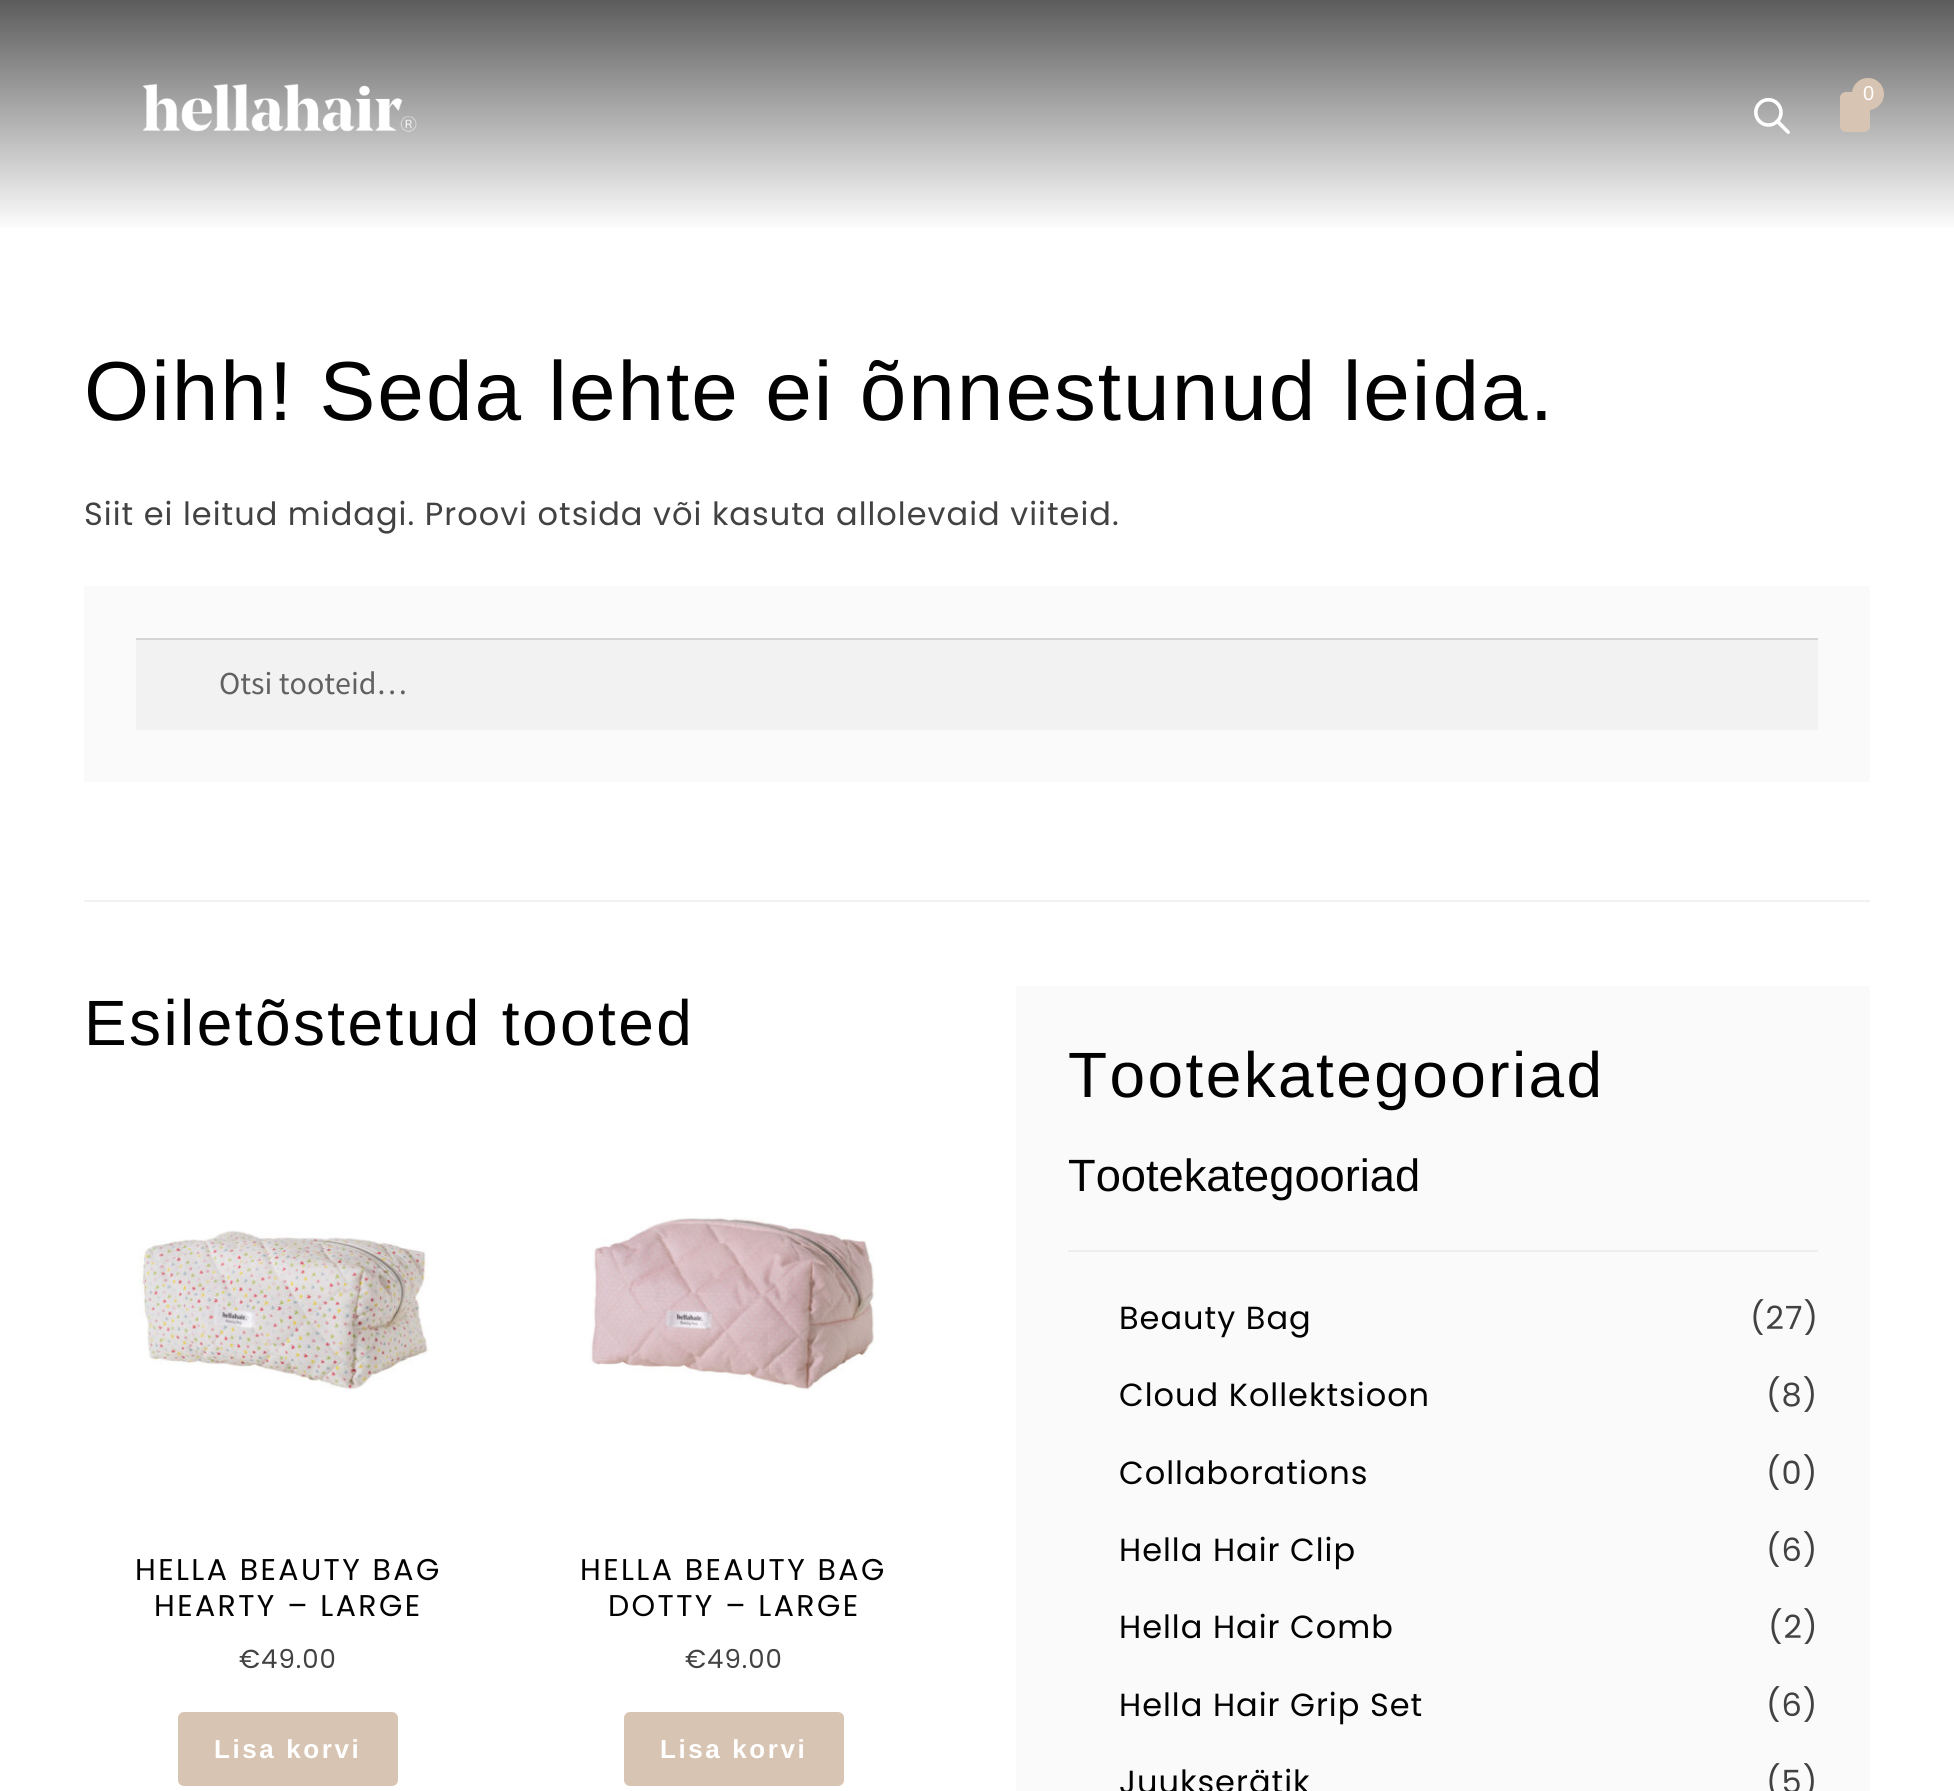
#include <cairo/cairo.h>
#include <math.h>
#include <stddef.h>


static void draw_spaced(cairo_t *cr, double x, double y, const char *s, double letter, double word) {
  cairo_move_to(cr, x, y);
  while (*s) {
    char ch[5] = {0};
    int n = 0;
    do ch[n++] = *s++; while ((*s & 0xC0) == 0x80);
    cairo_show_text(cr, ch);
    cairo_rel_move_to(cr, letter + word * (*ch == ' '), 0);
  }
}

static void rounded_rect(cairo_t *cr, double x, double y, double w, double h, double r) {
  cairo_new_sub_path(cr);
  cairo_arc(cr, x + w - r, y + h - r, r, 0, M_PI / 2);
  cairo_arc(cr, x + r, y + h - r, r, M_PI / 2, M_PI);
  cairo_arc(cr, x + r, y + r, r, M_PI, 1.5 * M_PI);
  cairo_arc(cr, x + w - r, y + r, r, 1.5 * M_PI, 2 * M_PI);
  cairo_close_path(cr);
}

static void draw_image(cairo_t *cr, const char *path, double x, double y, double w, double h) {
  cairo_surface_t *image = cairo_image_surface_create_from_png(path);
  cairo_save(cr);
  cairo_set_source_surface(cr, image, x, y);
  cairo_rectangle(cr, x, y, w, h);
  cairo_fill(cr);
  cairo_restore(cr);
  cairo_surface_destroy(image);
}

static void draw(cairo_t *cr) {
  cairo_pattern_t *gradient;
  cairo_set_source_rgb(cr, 1, 1, 1);
  cairo_paint(cr);
  gradient = cairo_pattern_create_linear(977, 0, 977, 232);
  cairo_pattern_add_color_stop_rgba(gradient, 0, 92 / 255.0, 92 / 255.0, 92 / 255.0, 1);
  cairo_pattern_add_color_stop_rgba(gradient, 1, 1, 1, 1, 1);
  cairo_set_source(cr, gradient);
  cairo_pattern_destroy(gradient);
  cairo_rectangle(cr, 0, 0, 1954, 228);
  cairo_fill(cr);
  draw_image(cr, "images/1.png", 142, 83, 275, 49);
  cairo_set_source_rgb(cr, 216 / 255.0, 196 / 255.0, 178 / 255.0);
  rounded_rect(cr, 1840, 92, 30, 40, 6);
  cairo_fill(cr);
  cairo_arc(cr, 1868, 94, 16, 0, 2 * M_PI);
  cairo_fill(cr);
  draw_image(cr, "images/2.png", 1754, 98, 36, 36);
  cairo_set_source_rgb(cr, 250 / 255.0, 250 / 255.0, 250 / 255.0);
  cairo_rectangle(cr, 84, 586, 1786, 196);
  cairo_fill(cr);
  cairo_set_source_rgb(cr, 242 / 255.0, 242 / 255.0, 242 / 255.0);
  cairo_rectangle(cr, 136, 640, 1682, 90);
  cairo_fill(cr);
  cairo_set_source_rgb(cr, 212 / 255.0, 212 / 255.0, 212 / 255.0);
  cairo_rectangle(cr, 136, 638, 1682, 2);
  cairo_fill(cr);
  cairo_set_source_rgb(cr, 242 / 255.0, 242 / 255.0, 242 / 255.0);
  cairo_rectangle(cr, 84, 900, 1786, 2);
  cairo_fill(cr);
  draw_image(cr, "images/3.png", 139, 1230, 290, 160);
  cairo_set_source_rgb(cr, 216 / 255.0, 196 / 255.0, 178 / 255.0);
  rounded_rect(cr, 178, 1712, 220, 74, 6);
  cairo_fill(cr);
  draw_image(cr, "images/4.png", 589, 1217, 286, 173);
  rounded_rect(cr, 624, 1712, 220, 74, 6);
  cairo_fill(cr);
  cairo_set_source_rgb(cr, 250 / 255.0, 250 / 255.0, 250 / 255.0);
  cairo_rectangle(cr, 1016, 986, 854, 805);
  cairo_fill(cr);
  cairo_set_source_rgb(cr, 238 / 255.0, 238 / 255.0, 238 / 255.0);
  cairo_rectangle(cr, 1068, 1250, 750, 2);
  cairo_fill(cr);
  cairo_select_font_face(cr, "Liberation Sans", CAIRO_FONT_SLANT_NORMAL, CAIRO_FONT_WEIGHT_NORMAL);
  cairo_set_font_size(cr, 20);
  cairo_set_source_rgb(cr, 1, 1, 1);
  cairo_move_to(cr, 1863, 100);
  cairo_show_text(cr, "0");
  cairo_set_font_size(cr, 83.75);
  cairo_set_source_rgb(cr, 2 / 255.0, 2 / 255.0, 2 / 255.0);
  draw_spaced(cr, 84, 420, "Oihh! Seda lehte ei õnnestunud leida.", 2, 0);
  cairo_select_font_face(cr, "Poppins", CAIRO_FONT_SLANT_NORMAL, CAIRO_FONT_WEIGHT_NORMAL);
  cairo_set_font_size(cr, 32);
  cairo_set_source_rgb(cr, 66 / 255.0, 66 / 255.0, 66 / 255.0);
  draw_spaced(cr, 84, 525, "Siit ei leitud midagi. Proovi otsida või kasuta allolevaid viiteid.", 1, 0);
  cairo_select_font_face(cr, "Source Sans Pro", CAIRO_FONT_SLANT_NORMAL, CAIRO_FONT_WEIGHT_NORMAL);
  cairo_set_source_rgb(cr, 97 / 255.0, 97 / 255.0, 97 / 255.0);
  cairo_move_to(cr, 219, 694);
  cairo_show_text(cr, "Otsi tooteid…");
  cairo_select_font_face(cr, "Liberation Sans", CAIRO_FONT_SLANT_NORMAL, CAIRO_FONT_WEIGHT_NORMAL);
  cairo_set_font_size(cr, 64);
  cairo_set_source_rgb(cr, 2 / 255.0, 2 / 255.0, 2 / 255.0);
  draw_spaced(cr, 84, 1045, "Esiletõstetud tooted", 2.4, 0);
  cairo_select_font_face(cr, "Poppins", CAIRO_FONT_SLANT_NORMAL, CAIRO_FONT_WEIGHT_NORMAL);
  cairo_set_font_size(cr, 30);
  draw_spaced(cr, 135, 1580, "HELLA BEAUTY BAG", 2.4, 0);
  draw_spaced(cr, 154, 1616, "HEARTY – LARGE", 2.4, 0);
  cairo_set_font_size(cr, 26);
  cairo_set_source_rgb(cr, 66 / 255.0, 66 / 255.0, 66 / 255.0);
  draw_spaced(cr, 239, 1668, "€49.00", 1, 0);
  cairo_select_font_face(cr, "Liberation Sans", CAIRO_FONT_SLANT_NORMAL, CAIRO_FONT_WEIGHT_BOLD);
  cairo_set_source_rgb(cr, 1, 1, 1);
  draw_spaced(cr, 214, 1758, "Lisa korvi", 2.6, 0);
  cairo_select_font_face(cr, "Poppins", CAIRO_FONT_SLANT_NORMAL, CAIRO_FONT_WEIGHT_NORMAL);
  cairo_set_font_size(cr, 30);
  cairo_set_source_rgb(cr, 2 / 255.0, 2 / 255.0, 2 / 255.0);
  draw_spaced(cr, 580, 1580, "HELLA BEAUTY BAG", 2.4, 0);
  draw_spaced(cr, 608, 1616, "DOTTY – LARGE", 2.4, 0);
  cairo_set_font_size(cr, 26);
  cairo_set_source_rgb(cr, 66 / 255.0, 66 / 255.0, 66 / 255.0);
  draw_spaced(cr, 685, 1668, "€49.00", 1, 0);
  cairo_select_font_face(cr, "Liberation Sans", CAIRO_FONT_SLANT_NORMAL, CAIRO_FONT_WEIGHT_BOLD);
  cairo_set_source_rgb(cr, 1, 1, 1);
  draw_spaced(cr, 660, 1758, "Lisa korvi", 2.6, 0);
  cairo_select_font_face(cr, "Liberation Sans", CAIRO_FONT_SLANT_NORMAL, CAIRO_FONT_WEIGHT_NORMAL);
  cairo_set_font_size(cr, 64);
  cairo_set_source_rgb(cr, 2 / 255.0, 2 / 255.0, 2 / 255.0);
  draw_spaced(cr, 1068, 1097, "Tootekategooriad", 2.4, 0);
  cairo_set_font_size(cr, 45.25);
  cairo_move_to(cr, 1068, 1191);
  cairo_show_text(cr, "Tootekategooriad");
  cairo_select_font_face(cr, "Poppins", CAIRO_FONT_SLANT_NORMAL, CAIRO_FONT_WEIGHT_NORMAL);
  cairo_set_font_size(cr, 32);
  draw_spaced(cr, 1119, 1329, "Beauty Bag", 1, 0);
  cairo_set_source_rgb(cr, 66 / 255.0, 66 / 255.0, 66 / 255.0);
  draw_spaced(cr, 1750, 1329, "(27)", 1, 0);
  cairo_set_source_rgb(cr, 2 / 255.0, 2 / 255.0, 2 / 255.0);
  draw_spaced(cr, 1119, 1406, "Cloud Kollektsioon", 1, 0);
  cairo_set_source_rgb(cr, 66 / 255.0, 66 / 255.0, 66 / 255.0);
  draw_spaced(cr, 1766, 1406, "(8)", 1, 0);
  cairo_set_source_rgb(cr, 2 / 255.0, 2 / 255.0, 2 / 255.0);
  draw_spaced(cr, 1119, 1484, "Collaborations", 1, 0);
  cairo_set_source_rgb(cr, 66 / 255.0, 66 / 255.0, 66 / 255.0);
  draw_spaced(cr, 1766, 1484, "(0)", 1, 0);
  cairo_set_source_rgb(cr, 2 / 255.0, 2 / 255.0, 2 / 255.0);
  draw_spaced(cr, 1119, 1561, "Hella Hair Clip", 1, 0);
  cairo_set_source_rgb(cr, 66 / 255.0, 66 / 255.0, 66 / 255.0);
  draw_spaced(cr, 1766, 1561, "(6)", 1, 0);
  cairo_set_source_rgb(cr, 2 / 255.0, 2 / 255.0, 2 / 255.0);
  draw_spaced(cr, 1119, 1638, "Hella Hair Comb", 1, 0);
  cairo_set_source_rgb(cr, 66 / 255.0, 66 / 255.0, 66 / 255.0);
  draw_spaced(cr, 1768, 1638, "(2)", 1, 0);
  cairo_set_source_rgb(cr, 2 / 255.0, 2 / 255.0, 2 / 255.0);
  draw_spaced(cr, 1119, 1716, "Hella Hair Grip Set", 1, 0);
  cairo_set_source_rgb(cr, 66 / 255.0, 66 / 255.0, 66 / 255.0);
  draw_spaced(cr, 1766, 1716, "(6)", 1, 0);
  cairo_set_source_rgb(cr, 2 / 255.0, 2 / 255.0, 2 / 255.0);
  draw_spaced(cr, 1119, 1793, "Juukserätik", 1, 0);
  cairo_set_source_rgb(cr, 66 / 255.0, 66 / 255.0, 66 / 255.0);
  draw_spaced(cr, 1766, 1793, "(5)", 1, 0);
}

int main(void) {
  cairo_surface_t *surface = cairo_image_surface_create(CAIRO_FORMAT_RGB24, 1954, 1791);
  cairo_t *cr = cairo_create(surface);
  cairo_font_options_t *options = cairo_font_options_create();
  cairo_font_options_set_hint_metrics(options, CAIRO_HINT_METRICS_OFF);
  cairo_font_options_set_hint_style(options, CAIRO_HINT_STYLE_NONE);
  cairo_set_font_options(cr, options);
  cairo_set_miter_limit(cr, 4);
  draw(cr);
  cairo_surface_write_to_png(surface, "out.png");
  cairo_font_options_destroy(options);
  cairo_destroy(cr);
  cairo_surface_destroy(surface);
  return 0;
}
